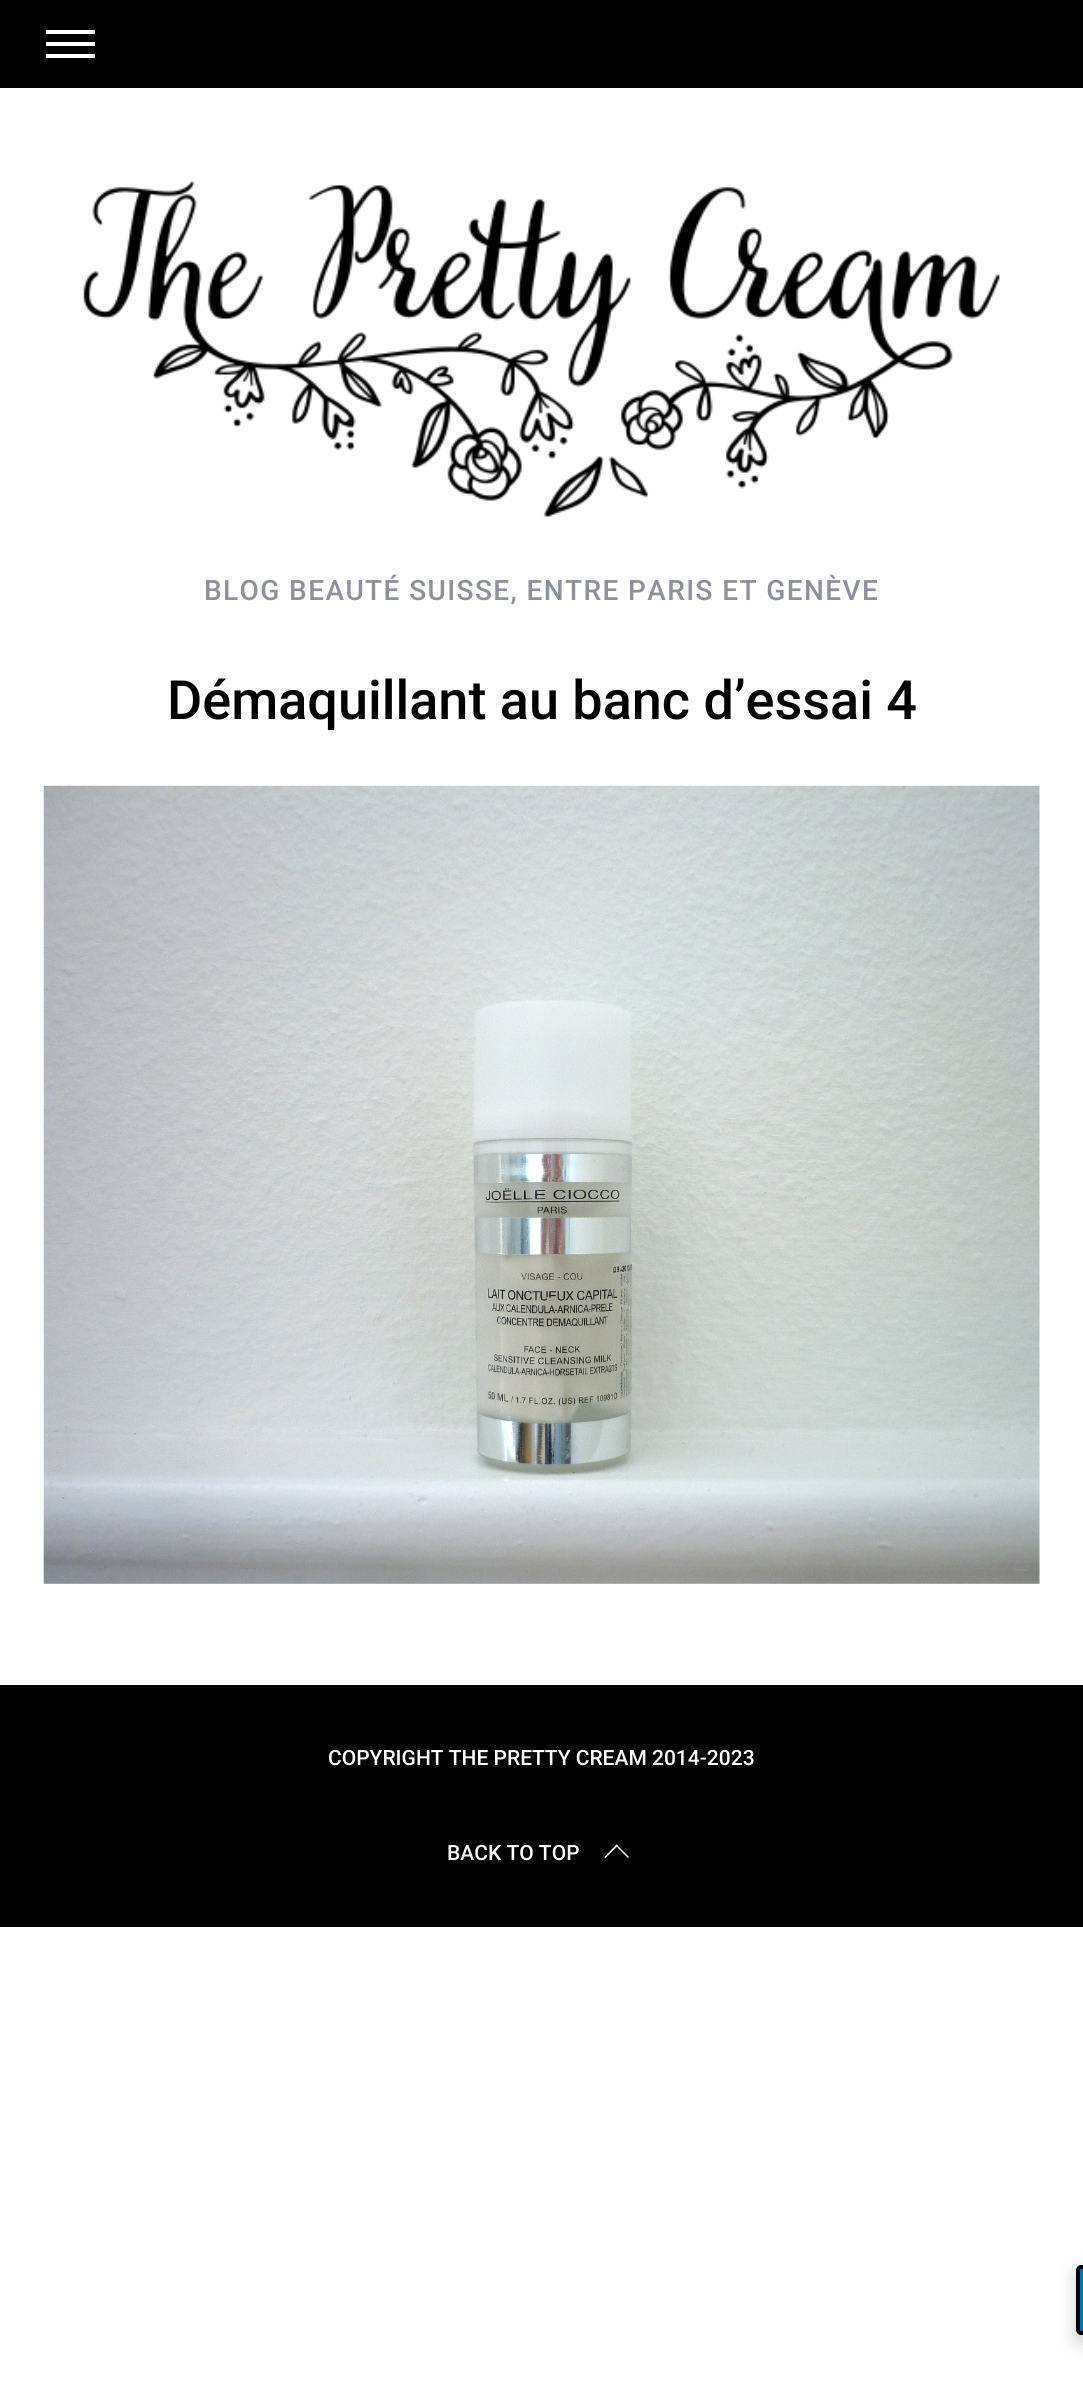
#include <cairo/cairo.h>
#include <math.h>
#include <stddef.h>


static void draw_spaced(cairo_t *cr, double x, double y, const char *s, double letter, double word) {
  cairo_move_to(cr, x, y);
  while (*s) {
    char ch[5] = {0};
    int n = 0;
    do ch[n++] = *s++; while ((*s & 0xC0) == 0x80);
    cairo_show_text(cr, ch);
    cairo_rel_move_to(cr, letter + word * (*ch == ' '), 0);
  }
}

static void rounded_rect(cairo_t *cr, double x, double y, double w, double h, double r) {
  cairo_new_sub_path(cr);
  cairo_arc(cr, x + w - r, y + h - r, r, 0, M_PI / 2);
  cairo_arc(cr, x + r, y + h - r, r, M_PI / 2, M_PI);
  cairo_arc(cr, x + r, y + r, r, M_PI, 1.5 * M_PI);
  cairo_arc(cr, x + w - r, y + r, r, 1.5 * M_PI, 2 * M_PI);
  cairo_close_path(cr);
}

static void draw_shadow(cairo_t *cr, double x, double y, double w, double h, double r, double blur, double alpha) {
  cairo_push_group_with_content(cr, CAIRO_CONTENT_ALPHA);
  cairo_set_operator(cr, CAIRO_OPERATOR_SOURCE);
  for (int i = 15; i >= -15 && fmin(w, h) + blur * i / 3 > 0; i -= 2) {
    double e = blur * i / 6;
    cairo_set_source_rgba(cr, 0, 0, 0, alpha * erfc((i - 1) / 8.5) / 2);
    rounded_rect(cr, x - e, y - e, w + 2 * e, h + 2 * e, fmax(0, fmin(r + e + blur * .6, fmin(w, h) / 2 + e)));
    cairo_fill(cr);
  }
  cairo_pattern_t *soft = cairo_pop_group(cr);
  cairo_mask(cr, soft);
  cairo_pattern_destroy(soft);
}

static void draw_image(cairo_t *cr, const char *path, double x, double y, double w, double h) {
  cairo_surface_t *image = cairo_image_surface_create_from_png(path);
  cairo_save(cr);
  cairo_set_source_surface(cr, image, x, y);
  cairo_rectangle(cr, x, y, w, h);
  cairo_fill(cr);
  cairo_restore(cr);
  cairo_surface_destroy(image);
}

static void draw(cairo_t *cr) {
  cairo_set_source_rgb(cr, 1, 1, 1);
  cairo_paint(cr);
  cairo_set_source_rgb(cr, 0, 0, 0);
  cairo_rectangle(cr, 0, 0, 1083, 88);
  cairo_fill(cr);
  cairo_set_source_rgb(cr, 1, 1, 1);
  cairo_rectangle(cr, 46, 42, 49, 4);
  cairo_fill(cr);
  cairo_rectangle(cr, 46, 30, 49, 4);
  cairo_fill(cr);
  cairo_rectangle(cr, 46, 54, 49, 4);
  cairo_fill(cr);
  draw_image(cr, "images/1.png", 83, 181, 917, 336);
  draw_image(cr, "images/2.png", 43, 785, 997, 799);
  cairo_set_source_rgb(cr, 0, 0, 0);
  cairo_rectangle(cr, 0, 1685, 1083, 242);
  cairo_fill(cr);
  cairo_set_source_rgb(cr, 1, 1, 1);
  cairo_new_path(cr);
  cairo_move_to(cr, 604.5, 1857);
  cairo_line_to(cr, 616.5, 1844.5);
  cairo_line_to(cr, 618, 1845.5);
  cairo_line_to(cr, 605.5, 1858);
  cairo_close_path(cr);
  cairo_fill(cr);
  cairo_new_path(cr);
  cairo_move_to(cr, 615.5, 1845.5);
  cairo_line_to(cr, 616.5, 1844.5);
  cairo_line_to(cr, 629, 1857);
  cairo_line_to(cr, 628, 1858);
  cairo_close_path(cr);
  cairo_fill(cr);
  cairo_set_source_rgb(cr, 0, 0, 0);
  draw_shadow(cr, 1076, 2272, 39, 70, 5, 9, 0.2);
  cairo_set_source_rgb(cr, 0, 115 / 255.0, 183 / 255.0);
  cairo_new_path(cr);
  cairo_move_to(cr, 1081, 2267);
  cairo_line_to(cr, 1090, 2267);
  cairo_line_to(cr, 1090, 2333);
  cairo_line_to(cr, 1081, 2333);
  cairo_curve_to(cr, 1079.5, 2333, 1078, 2331.5, 1078, 2330);
  cairo_line_to(cr, 1078, 2270);
  cairo_curve_to(cr, 1078, 2268.5, 1079.5, 2267, 1081, 2267);
  cairo_close_path(cr);
  cairo_fill_preserve(cr);
  cairo_set_source_rgb(cr, 0, 0, 0);
  cairo_set_line_width(cr, 4);
  cairo_stroke(cr);
  cairo_select_font_face(cr, "Roboto Medium", CAIRO_FONT_SLANT_NORMAL, CAIRO_FONT_WEIGHT_NORMAL);
  cairo_set_font_size(cr, 28);
  cairo_set_source_rgb(cr, 140 / 255.0, 145 / 255.0, 155 / 255.0);
  draw_spaced(cr, 204, 600, "BLOG BEAUTÉ SUISSE, ENTRE PARIS ET GENÈVE", 1.4, 0);
  cairo_set_font_size(cr, 54);
  cairo_set_source_rgb(cr, 0, 0, 0);
  cairo_move_to(cr, 167, 719);
  cairo_show_text(cr, "Démaquillant au banc d’essai 4");
  cairo_set_font_size(cr, 21);
  cairo_set_source_rgb(cr, 1, 1, 1);
  cairo_move_to(cr, 328, 1765);
  cairo_show_text(cr, "COPYRIGHT THE PRETTY CREAM 2014-2023");
  cairo_move_to(cr, 447, 1860);
  cairo_show_text(cr, "BACK TO TOP");
}

int main(void) {
  cairo_surface_t *surface = cairo_image_surface_create(CAIRO_FORMAT_RGB24, 1083, 2403);
  cairo_t *cr = cairo_create(surface);
  cairo_font_options_t *options = cairo_font_options_create();
  cairo_font_options_set_hint_metrics(options, CAIRO_HINT_METRICS_OFF);
  cairo_font_options_set_hint_style(options, CAIRO_HINT_STYLE_NONE);
  cairo_set_font_options(cr, options);
  cairo_set_miter_limit(cr, 4);
  draw(cr);
  cairo_surface_write_to_png(surface, "out.png");
  cairo_font_options_destroy(options);
  cairo_destroy(cr);
  cairo_surface_destroy(surface);
  return 0;
}
